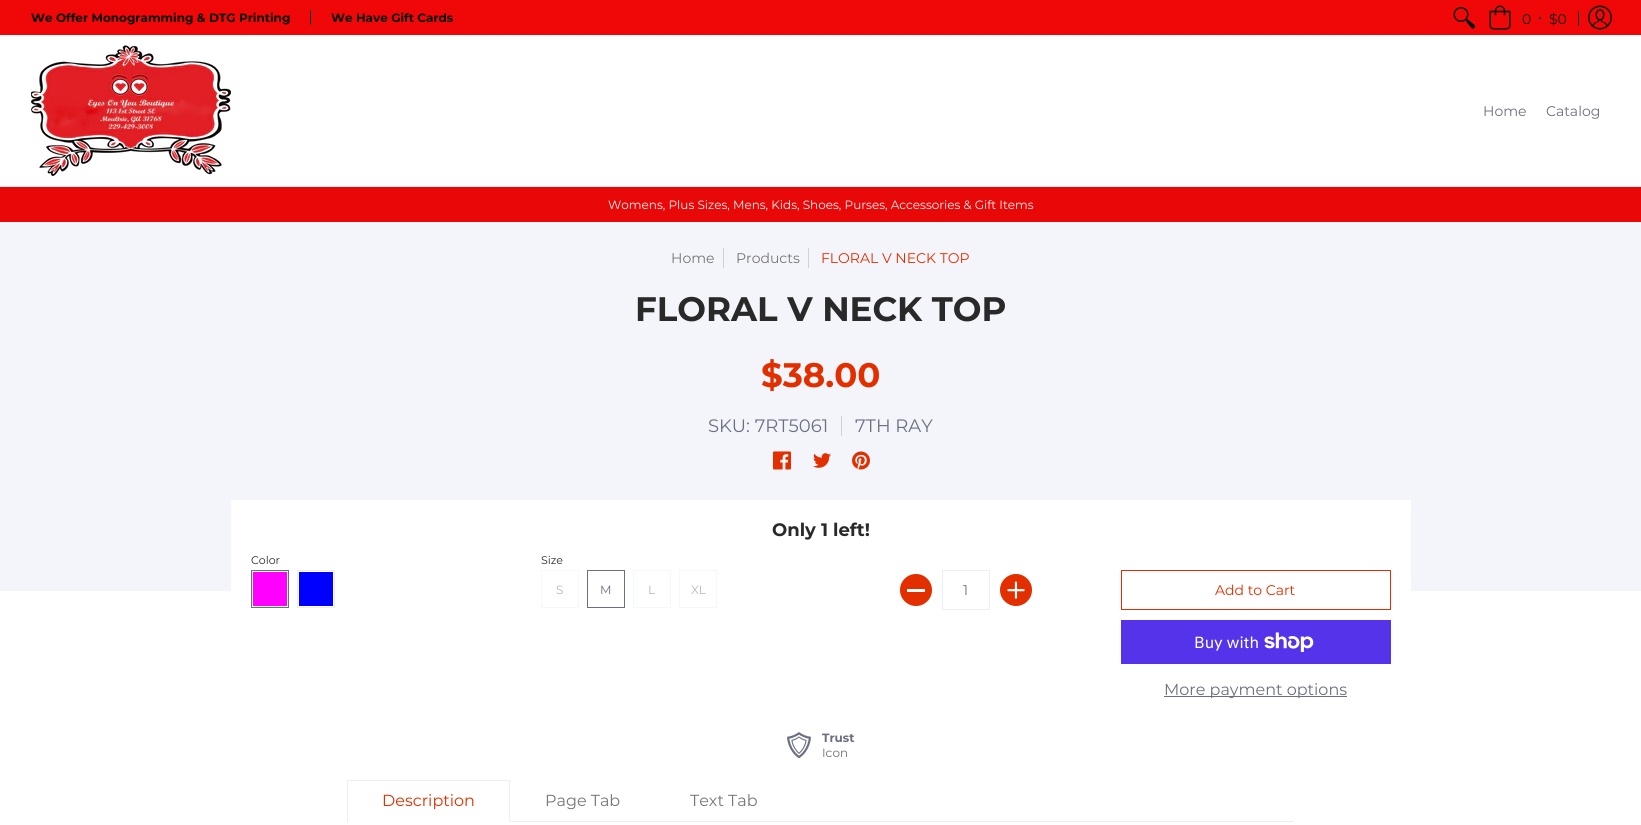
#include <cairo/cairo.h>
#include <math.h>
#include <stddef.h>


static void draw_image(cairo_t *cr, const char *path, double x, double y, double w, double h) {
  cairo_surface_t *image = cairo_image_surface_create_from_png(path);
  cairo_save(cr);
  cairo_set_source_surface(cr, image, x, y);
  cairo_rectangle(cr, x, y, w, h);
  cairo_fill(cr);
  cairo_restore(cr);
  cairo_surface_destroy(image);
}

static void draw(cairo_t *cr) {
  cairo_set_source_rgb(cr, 1, 1, 1);
  cairo_paint(cr);
  cairo_set_source_rgb(cr, 240 / 255.0, 7 / 255.0, 7 / 255.0);
  cairo_rectangle(cr, 0, 0, 1641, 35);
  cairo_fill(cr);
  cairo_set_source_rgb(cr, 10 / 255.0, 9 / 255.0, 9 / 255.0);
  cairo_rectangle(cr, 310, 10, 1, 15);
  cairo_fill(cr);
  draw_image(cr, "images/1.png", 1453, 7, 23, 22);
  draw_image(cr, "images/2.png", 1489, 5, 22, 25);
  cairo_rectangle(cr, 1578, 11, 1, 15);
  cairo_fill(cr);
  draw_image(cr, "images/3.png", 1588, 5, 24, 25);
  cairo_set_source_rgb(cr, 237 / 255.0, 238 / 255.0, 244 / 255.0);
  cairo_rectangle(cr, 0, 186, 1641, 1);
  cairo_fill(cr);
  draw_image(cr, "images/4.png", 31, 45, 200, 131);
  cairo_set_source_rgb(cr, 233 / 255.0, 8 / 255.0, 8 / 255.0);
  cairo_rectangle(cr, 0, 187, 1641, 35);
  cairo_fill(cr);
  cairo_set_source_rgb(cr, 244 / 255.0, 245 / 255.0, 250 / 255.0);
  cairo_rectangle(cr, 0, 222, 1641, 369);
  cairo_fill(cr);
  cairo_set_source_rgb(cr, 205 / 255.0, 208 / 255.0, 225 / 255.0);
  cairo_rectangle(cr, 723, 248, 1, 20);
  cairo_fill(cr);
  cairo_rectangle(cr, 808, 248, 1, 20);
  cairo_fill(cr);
  cairo_rectangle(cr, 841, 416, 1, 20);
  cairo_fill(cr);
  draw_image(cr, "images/5.png", 773, 451, 18, 19);
  draw_image(cr, "images/6.png", 813, 453, 18, 15);
  draw_image(cr, "images/7.png", 852, 451, 18, 19);
  cairo_set_source_rgb(cr, 1, 1, 1);
  cairo_rectangle(cr, 231, 500, 1180, 91);
  cairo_fill(cr);
  cairo_rectangle(cr, 251.5, 570.5, 37, 37);
  cairo_set_source_rgb(cr, 107 / 255.0, 111 / 255.0, 129 / 255.0);
  cairo_set_line_width(cr, 1);
  cairo_stroke(cr);
  cairo_set_source_rgb(cr, 1, 0, 1);
  cairo_rectangle(cr, 253, 572, 34, 34);
  cairo_fill(cr);
  cairo_rectangle(cr, 297.5, 570.5, 37, 37);
  cairo_set_source_rgb(cr, 237 / 255.0, 238 / 255.0, 244 / 255.0);
  cairo_stroke(cr);
  cairo_set_source_rgb(cr, 0, 0, 1);
  cairo_rectangle(cr, 299, 572, 34, 34);
  cairo_fill(cr);
  cairo_rectangle(cr, 541.5, 570.5, 37, 37);
  cairo_set_source_rgb(cr, 246 / 255.0, 247 / 255.0, 250 / 255.0);
  cairo_stroke(cr);
  cairo_rectangle(cr, 587.5, 570.5, 37, 37);
  cairo_set_source_rgb(cr, 107 / 255.0, 111 / 255.0, 129 / 255.0);
  cairo_stroke(cr);
  cairo_rectangle(cr, 633.5, 570.5, 37, 37);
  cairo_set_source_rgb(cr, 246 / 255.0, 247 / 255.0, 250 / 255.0);
  cairo_stroke(cr);
  cairo_rectangle(cr, 679.5, 570.5, 37, 37);
  cairo_stroke(cr);
  cairo_set_source_rgb(cr, 227 / 255.0, 46 / 255.0, 0);
  cairo_arc(cr, 916, 590, 16, 0, 2 * M_PI);
  cairo_fill(cr);
  cairo_set_source_rgb(cr, 1, 1, 1);
  cairo_rectangle(cr, 907, 589, 18, 3);
  cairo_fill(cr);
  cairo_rectangle(cr, 942.5, 570.5, 47, 39);
  cairo_set_source_rgb(cr, 237 / 255.0, 238 / 255.0, 244 / 255.0);
  cairo_stroke(cr);
  cairo_set_source_rgb(cr, 227 / 255.0, 46 / 255.0, 0);
  cairo_arc(cr, 1016, 590, 16, 0, 2 * M_PI);
  cairo_fill(cr);
  draw_image(cr, "images/8.png", 1007, 581, 18, 18);
  cairo_rectangle(cr, 1121.5, 570.5, 269, 39);
  cairo_stroke(cr);
  cairo_set_source_rgb(cr, 84 / 255.0, 51 / 255.0, 235 / 255.0);
  cairo_rectangle(cr, 1121, 620, 270, 44);
  cairo_fill(cr);
  draw_image(cr, "images/9.png", 1264, 632, 50, 20);
  cairo_set_source_rgb(cr, 107 / 255.0, 111 / 255.0, 129 / 255.0);
  cairo_rectangle(cr, 1164, 696, 183, 1);
  cairo_fill(cr);
  draw_image(cr, "images/10.png", 787, 732, 24, 27);
  cairo_set_source_rgb(cr, 237 / 255.0, 238 / 255.0, 244 / 255.0);
  cairo_rectangle(cr, 347, 780, 163, 1);
  cairo_fill(cr);
  cairo_rectangle(cr, 509, 780, 1, 42);
  cairo_fill(cr);
  cairo_set_source_rgb(cr, 1, 1, 1);
  cairo_rectangle(cr, 509, 821, 1, 1);
  cairo_fill(cr);
  cairo_set_source_rgb(cr, 237 / 255.0, 238 / 255.0, 244 / 255.0);
  cairo_rectangle(cr, 347, 780, 1, 42);
  cairo_fill(cr);
  cairo_rectangle(cr, 510, 821, 784, 1);
  cairo_fill(cr);
  cairo_select_font_face(cr, "Montserrat", CAIRO_FONT_SLANT_NORMAL, CAIRO_FONT_WEIGHT_BOLD);
  cairo_set_font_size(cr, 12);
  cairo_set_source_rgb(cr, 10 / 255.0, 9 / 255.0, 9 / 255.0);
  cairo_move_to(cr, 31, 22);
  cairo_show_text(cr, "We Offer Monogramming & DTG Printing");
  cairo_move_to(cr, 331, 22);
  cairo_show_text(cr, "We Have Gift Cards");
  cairo_select_font_face(cr, "Montserrat", CAIRO_FONT_SLANT_NORMAL, CAIRO_FONT_WEIGHT_NORMAL);
  cairo_set_font_size(cr, 14);
  cairo_move_to(cr, 1522, 24);
  cairo_show_text(cr, "0");
  cairo_move_to(cr, 1538, 22);
  cairo_show_text(cr, "•");
  cairo_move_to(cr, 1549, 24);
  cairo_show_text(cr, "$0");
  cairo_set_source_rgb(cr, 107 / 255.0, 111 / 255.0, 129 / 255.0);
  cairo_move_to(cr, 1483, 116);
  cairo_show_text(cr, "Home");
  cairo_move_to(cr, 1546, 116);
  cairo_show_text(cr, "Catalog");
  cairo_set_font_size(cr, 12);
  cairo_set_source_rgb(cr, 248 / 255.0, 244 / 255.0, 244 / 255.0);
  cairo_move_to(cr, 608, 209);
  cairo_show_text(cr, "Womens, Plus Sizes, Mens, Kids, Shoes, Purses, Accessories & Gift Items");
  cairo_set_font_size(cr, 14);
  cairo_set_source_rgb(cr, 118 / 255.0, 118 / 255.0, 118 / 255.0);
  cairo_move_to(cr, 671, 263);
  cairo_show_text(cr, "Home");
  cairo_move_to(cr, 736, 263);
  cairo_show_text(cr, "Products");
  cairo_set_source_rgb(cr, 227 / 255.0, 46 / 255.0, 0);
  cairo_move_to(cr, 821, 263);
  cairo_show_text(cr, "FLORAL V NECK TOP");
  cairo_select_font_face(cr, "Montserrat", CAIRO_FONT_SLANT_NORMAL, CAIRO_FONT_WEIGHT_BOLD);
  cairo_set_font_size(cr, 34);
  cairo_set_source_rgb(cr, 41 / 255.0, 41 / 255.0, 41 / 255.0);
  cairo_move_to(cr, 635, 321);
  cairo_show_text(cr, "FLORAL V NECK TOP");
  cairo_set_source_rgb(cr, 227 / 255.0, 46 / 255.0, 0);
  cairo_move_to(cr, 761, 387);
  cairo_show_text(cr, "$38.00");
  cairo_select_font_face(cr, "Montserrat", CAIRO_FONT_SLANT_NORMAL, CAIRO_FONT_WEIGHT_NORMAL);
  cairo_set_font_size(cr, 18);
  cairo_set_source_rgb(cr, 107 / 255.0, 111 / 255.0, 129 / 255.0);
  cairo_move_to(cr, 708, 432);
  cairo_show_text(cr, "SKU: 7RT5061");
  cairo_move_to(cr, 855, 432);
  cairo_show_text(cr, "7TH RAY");
  cairo_select_font_face(cr, "Montserrat", CAIRO_FONT_SLANT_NORMAL, CAIRO_FONT_WEIGHT_BOLD);
  cairo_set_source_rgb(cr, 41 / 255.0, 41 / 255.0, 41 / 255.0);
  cairo_move_to(cr, 772, 536);
  cairo_show_text(cr, "Only 1 left!");
  cairo_select_font_face(cr, "Montserrat", CAIRO_FONT_SLANT_NORMAL, CAIRO_FONT_WEIGHT_NORMAL);
  cairo_set_font_size(cr, 11);
  cairo_move_to(cr, 251, 564);
  cairo_show_text(cr, "Color");
  cairo_move_to(cr, 541, 564);
  cairo_show_text(cr, "Size");
  cairo_set_font_size(cr, 12);
  cairo_set_source_rgb(cr, 181 / 255.0, 183 / 255.0, 192 / 255.0);
  cairo_move_to(cr, 556, 594);
  cairo_show_text(cr, "S");
  cairo_set_source_rgb(cr, 107 / 255.0, 111 / 255.0, 129 / 255.0);
  cairo_move_to(cr, 600, 594);
  cairo_show_text(cr, "M");
  cairo_set_source_rgb(cr, 181 / 255.0, 183 / 255.0, 192 / 255.0);
  cairo_move_to(cr, 648, 594);
  cairo_show_text(cr, "L");
  cairo_move_to(cr, 691, 594);
  cairo_show_text(cr, "XL");
  cairo_set_font_size(cr, 14);
  cairo_set_source_rgb(cr, 107 / 255.0, 111 / 255.0, 129 / 255.0);
  cairo_move_to(cr, 963, 595);
  cairo_show_text(cr, "1");
  cairo_set_source_rgb(cr, 227 / 255.0, 46 / 255.0, 0);
  cairo_move_to(cr, 1215, 595);
  cairo_show_text(cr, "Add to Cart");
  cairo_select_font_face(cr, "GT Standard", CAIRO_FONT_SLANT_NORMAL, CAIRO_FONT_WEIGHT_NORMAL);
  cairo_set_font_size(cr, 16);
  cairo_set_source_rgb(cr, 1, 1, 1);
  cairo_move_to(cr, 1194, 648);
  cairo_show_text(cr, "Buy with");
  cairo_select_font_face(cr, "Montserrat", CAIRO_FONT_SLANT_NORMAL, CAIRO_FONT_WEIGHT_NORMAL);
  cairo_set_source_rgb(cr, 107 / 255.0, 111 / 255.0, 129 / 255.0);
  cairo_move_to(cr, 1164, 695);
  cairo_show_text(cr, "More payment options");
  cairo_select_font_face(cr, "Montserrat", CAIRO_FONT_SLANT_NORMAL, CAIRO_FONT_WEIGHT_BOLD);
  cairo_set_font_size(cr, 12);
  cairo_move_to(cr, 822, 742);
  cairo_show_text(cr, "Trust");
  cairo_select_font_face(cr, "Montserrat", CAIRO_FONT_SLANT_NORMAL, CAIRO_FONT_WEIGHT_NORMAL);
  cairo_move_to(cr, 822, 757);
  cairo_show_text(cr, "Icon");
  cairo_set_font_size(cr, 16);
  cairo_set_source_rgb(cr, 227 / 255.0, 46 / 255.0, 0);
  cairo_move_to(cr, 382, 806);
  cairo_show_text(cr, "Description");
  cairo_set_source_rgb(cr, 118 / 255.0, 118 / 255.0, 118 / 255.0);
  cairo_move_to(cr, 545, 806);
  cairo_show_text(cr, "Page Tab");
  cairo_move_to(cr, 690, 806);
  cairo_show_text(cr, "Text Tab");
}

int main(void) {
  cairo_surface_t *surface = cairo_image_surface_create(CAIRO_FORMAT_RGB24, 1641, 825);
  cairo_t *cr = cairo_create(surface);
  cairo_font_options_t *options = cairo_font_options_create();
  cairo_font_options_set_hint_metrics(options, CAIRO_HINT_METRICS_OFF);
  cairo_font_options_set_hint_style(options, CAIRO_HINT_STYLE_NONE);
  cairo_set_font_options(cr, options);
  cairo_set_miter_limit(cr, 4);
  draw(cr);
  cairo_surface_write_to_png(surface, "out.png");
  cairo_font_options_destroy(options);
  cairo_destroy(cr);
  cairo_surface_destroy(surface);
  return 0;
}
